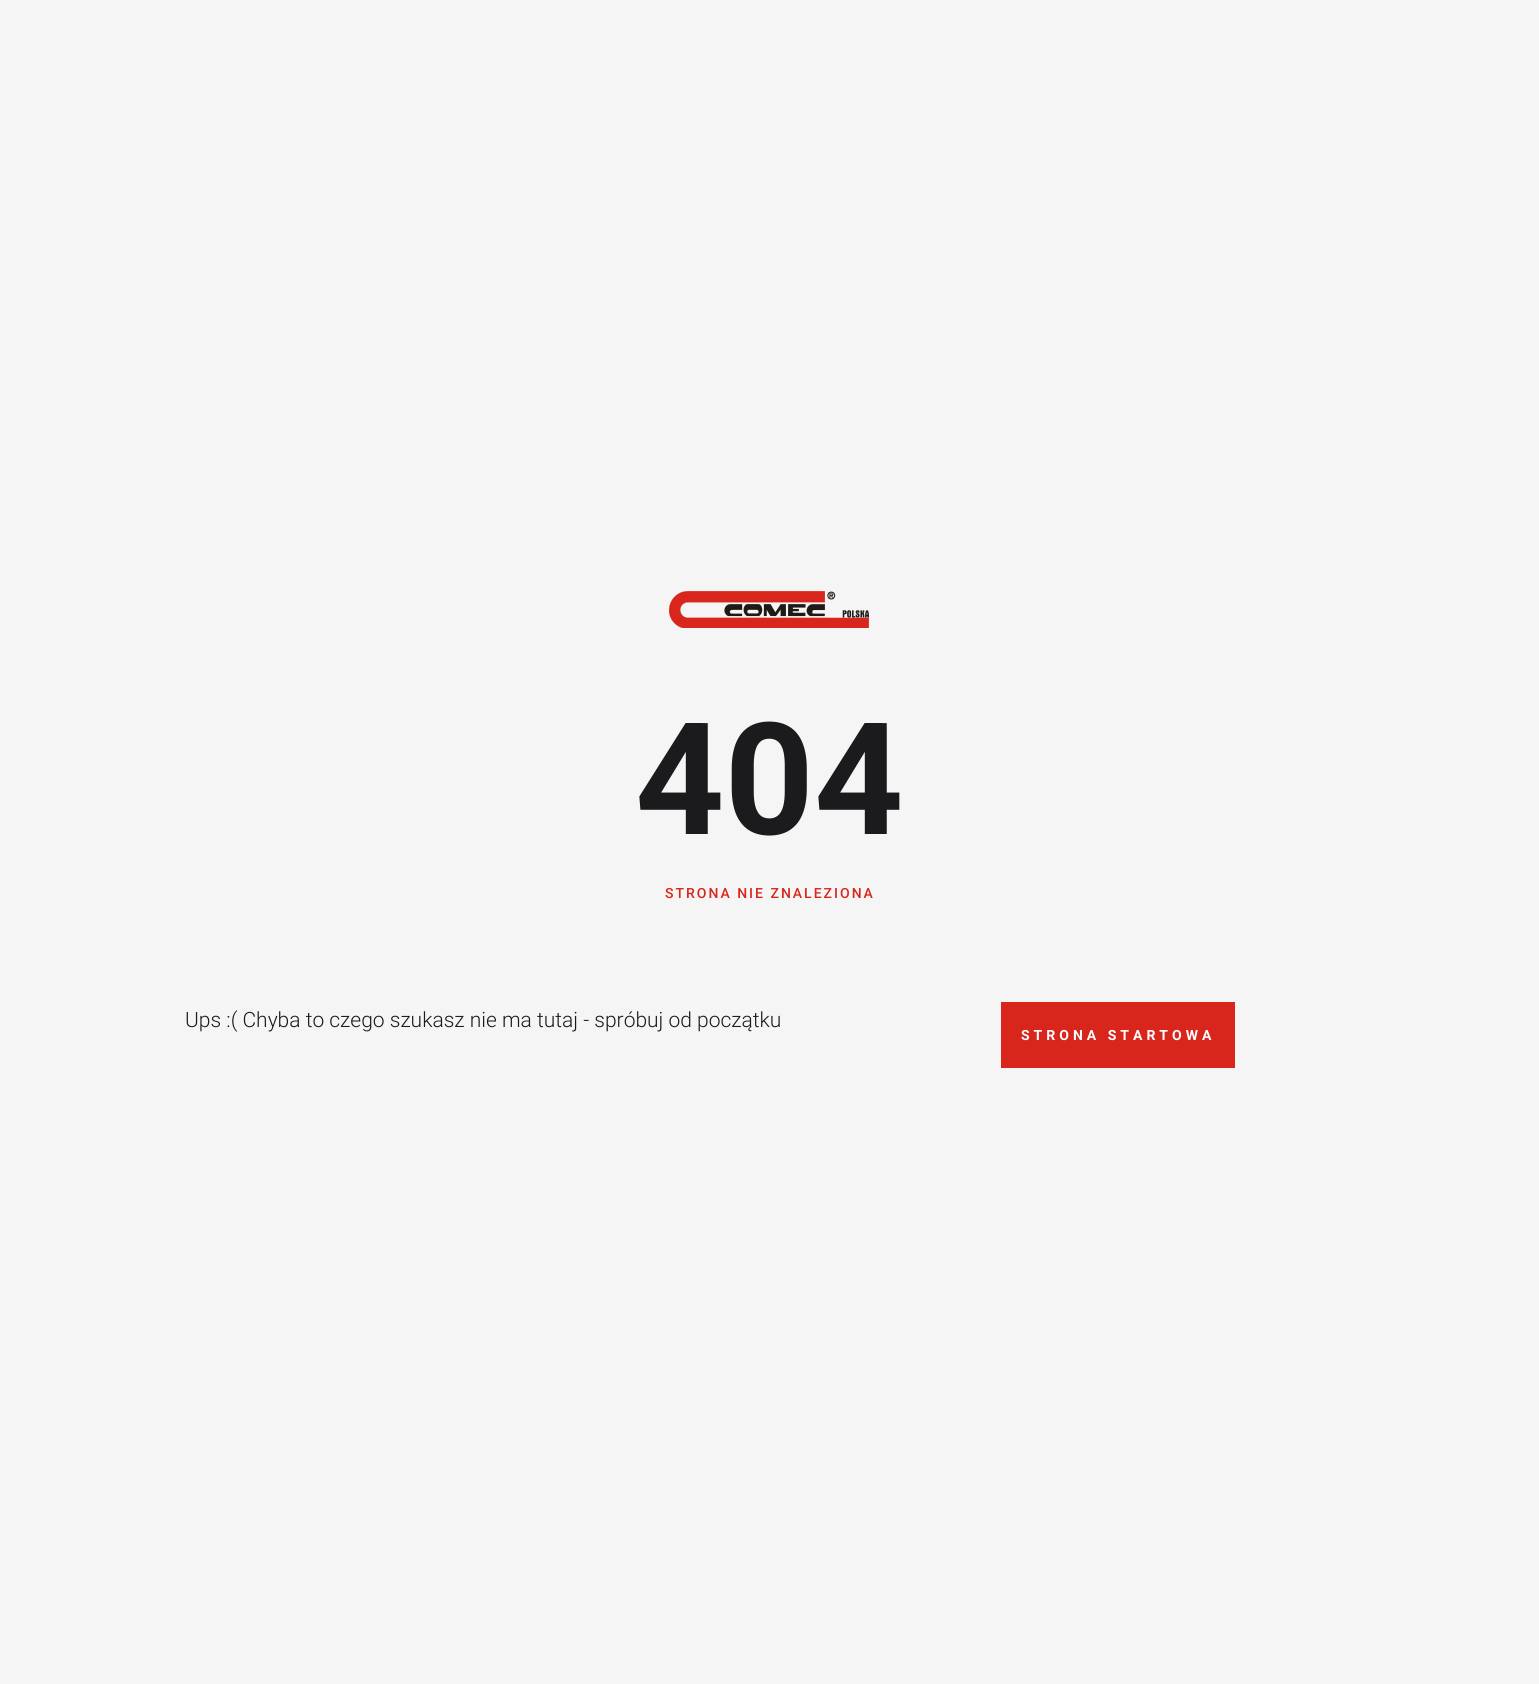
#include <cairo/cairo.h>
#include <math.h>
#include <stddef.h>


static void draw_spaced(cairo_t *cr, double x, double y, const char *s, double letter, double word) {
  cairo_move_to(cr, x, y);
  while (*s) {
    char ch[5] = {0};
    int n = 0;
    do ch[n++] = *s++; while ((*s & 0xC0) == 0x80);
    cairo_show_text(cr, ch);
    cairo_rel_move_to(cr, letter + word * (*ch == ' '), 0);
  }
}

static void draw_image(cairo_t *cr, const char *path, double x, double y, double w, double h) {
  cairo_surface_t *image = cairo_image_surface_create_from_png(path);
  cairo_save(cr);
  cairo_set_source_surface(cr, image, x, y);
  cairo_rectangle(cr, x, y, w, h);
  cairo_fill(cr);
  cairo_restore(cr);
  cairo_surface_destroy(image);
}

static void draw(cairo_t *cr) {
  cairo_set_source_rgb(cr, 245 / 255.0, 245 / 255.0, 245 / 255.0);
  cairo_paint(cr);
  draw_image(cr, "images/1.png", 669, 591, 200, 37);
  cairo_set_source_rgb(cr, 217 / 255.0, 38 / 255.0, 28 / 255.0);
  cairo_rectangle(cr, 1001, 1002, 234, 66);
  cairo_fill(cr);
  cairo_select_font_face(cr, "Roboto", CAIRO_FONT_SLANT_NORMAL, CAIRO_FONT_WEIGHT_BOLD);
  cairo_set_font_size(cr, 156);
  cairo_set_source_rgb(cr, 27 / 255.0, 27 / 255.0, 29 / 255.0);
  cairo_move_to(cr, 635, 834);
  cairo_show_text(cr, "404");
  cairo_select_font_face(cr, "Roboto Medium", CAIRO_FONT_SLANT_NORMAL, CAIRO_FONT_WEIGHT_NORMAL);
  cairo_set_font_size(cr, 14);
  cairo_set_source_rgb(cr, 217 / 255.0, 38 / 255.0, 28 / 255.0);
  draw_spaced(cr, 665, 898, "STRONA NIE ZNALEZIONA", 2, 0);
  cairo_select_font_face(cr, "Roboto Light", CAIRO_FONT_SLANT_NORMAL, CAIRO_FONT_WEIGHT_NORMAL);
  cairo_set_font_size(cr, 21);
  cairo_set_source_rgb(cr, 27 / 255.0, 27 / 255.0, 29 / 255.0);
  cairo_move_to(cr, 185, 1027);
  cairo_show_text(cr, "Ups :( Chyba to czego szukasz nie ma tutaj - spróbuj od początku");
  cairo_select_font_face(cr, "Roboto", CAIRO_FONT_SLANT_NORMAL, CAIRO_FONT_WEIGHT_BOLD);
  cairo_set_font_size(cr, 14);
  cairo_set_source_rgb(cr, 1, 1, 1);
  draw_spaced(cr, 1021, 1040, "STRONA STARTOWA", 4, 0);
}

int main(void) {
  cairo_surface_t *surface = cairo_image_surface_create(CAIRO_FORMAT_RGB24, 1539, 1684);
  cairo_t *cr = cairo_create(surface);
  cairo_font_options_t *options = cairo_font_options_create();
  cairo_font_options_set_hint_metrics(options, CAIRO_HINT_METRICS_OFF);
  cairo_font_options_set_hint_style(options, CAIRO_HINT_STYLE_NONE);
  cairo_set_font_options(cr, options);
  cairo_set_miter_limit(cr, 4);
  draw(cr);
  cairo_surface_write_to_png(surface, "out.png");
  cairo_font_options_destroy(options);
  cairo_destroy(cr);
  cairo_surface_destroy(surface);
  return 0;
}
